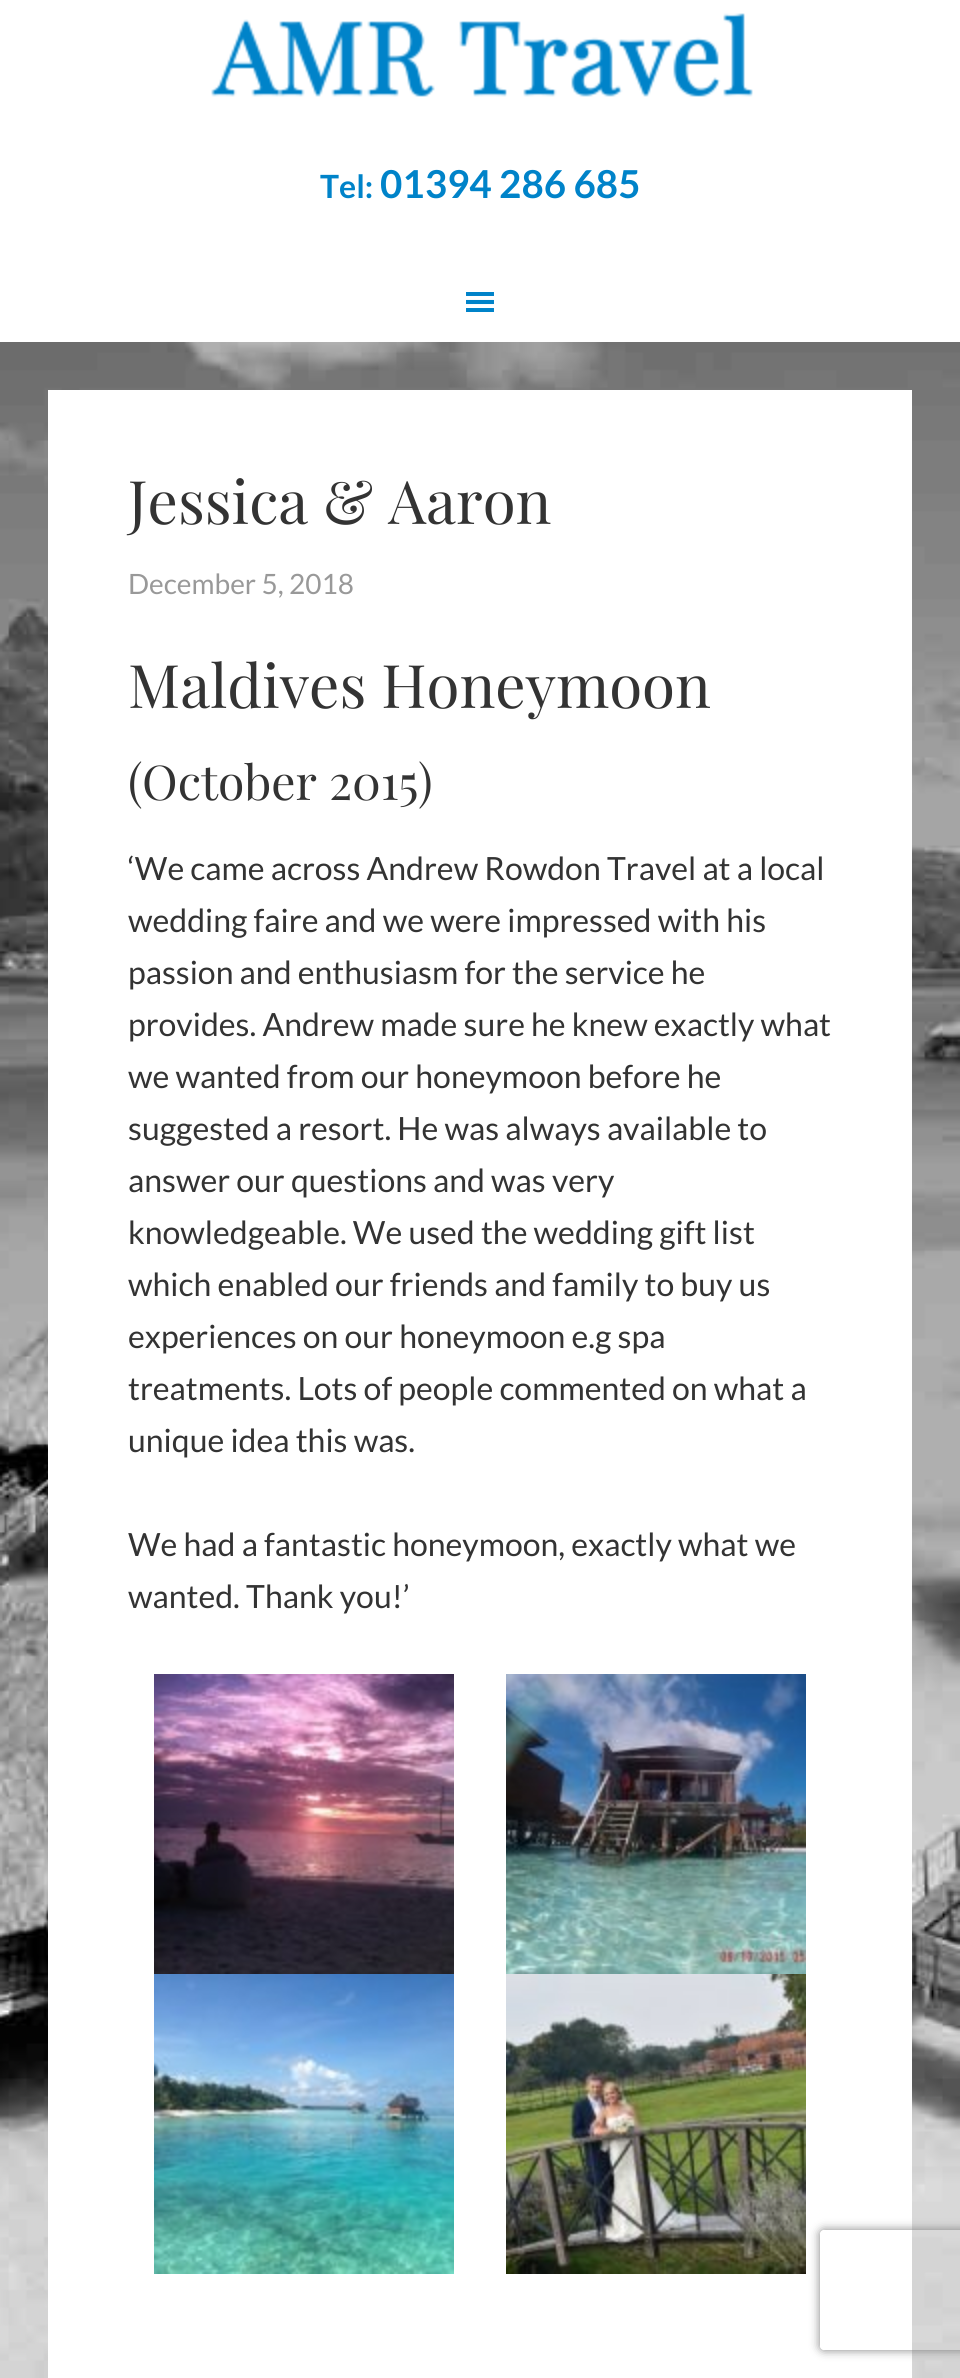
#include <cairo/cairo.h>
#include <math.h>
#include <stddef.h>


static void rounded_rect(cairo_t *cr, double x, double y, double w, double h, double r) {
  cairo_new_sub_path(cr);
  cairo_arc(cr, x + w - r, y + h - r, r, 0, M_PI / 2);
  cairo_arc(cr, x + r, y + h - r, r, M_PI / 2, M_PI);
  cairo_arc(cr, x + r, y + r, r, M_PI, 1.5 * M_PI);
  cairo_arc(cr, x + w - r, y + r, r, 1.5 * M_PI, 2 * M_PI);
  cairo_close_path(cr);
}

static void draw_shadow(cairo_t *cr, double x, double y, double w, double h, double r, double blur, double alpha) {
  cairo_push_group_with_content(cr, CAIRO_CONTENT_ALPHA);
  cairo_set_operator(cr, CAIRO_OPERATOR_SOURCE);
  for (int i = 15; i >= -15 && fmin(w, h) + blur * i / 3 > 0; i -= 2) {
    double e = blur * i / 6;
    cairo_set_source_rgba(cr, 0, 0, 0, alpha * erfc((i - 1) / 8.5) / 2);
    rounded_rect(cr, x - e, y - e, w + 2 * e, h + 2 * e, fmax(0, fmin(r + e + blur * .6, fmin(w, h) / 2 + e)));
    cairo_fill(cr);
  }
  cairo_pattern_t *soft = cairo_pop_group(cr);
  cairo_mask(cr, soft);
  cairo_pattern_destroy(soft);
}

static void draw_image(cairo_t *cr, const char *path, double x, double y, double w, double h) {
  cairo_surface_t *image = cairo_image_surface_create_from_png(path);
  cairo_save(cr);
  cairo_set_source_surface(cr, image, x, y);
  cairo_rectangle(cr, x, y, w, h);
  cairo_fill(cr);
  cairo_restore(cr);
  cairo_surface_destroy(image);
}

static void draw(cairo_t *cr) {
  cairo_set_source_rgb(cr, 1, 1, 1);
  cairo_paint(cr);
  draw_image(cr, "images/1.png", 0, 342, 960, 2036);
  draw_image(cr, "images/2.png", 211, 13, 542, 84);
  draw_image(cr, "images/3.png", 466, 292, 28, 20);
  cairo_set_source_rgb(cr, 1, 1, 1);
  cairo_rectangle(cr, 48, 390, 864, 1988);
  cairo_fill(cr);
  draw_image(cr, "images/4.png", 154, 1674, 300, 300);
  draw_image(cr, "images/5.png", 506, 1674, 300, 300);
  draw_image(cr, "images/6.png", 154, 1974, 300, 300);
  draw_image(cr, "images/7.png", 506, 1974, 300, 300);
  cairo_save(cr);
  cairo_set_fill_rule(cr, CAIRO_FILL_RULE_EVEN_ODD);
  cairo_new_path(cr);
  cairo_move_to(cr, 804, 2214);
  cairo_line_to(cr, 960, 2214);
  cairo_line_to(cr, 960, 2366);
  cairo_line_to(cr, 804, 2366);
  cairo_close_path(cr);
  cairo_move_to(cr, 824, 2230);
  cairo_line_to(cr, 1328, 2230);
  cairo_curve_to(cr, 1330, 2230, 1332, 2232, 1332, 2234);
  cairo_line_to(cr, 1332, 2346);
  cairo_curve_to(cr, 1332, 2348, 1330, 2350, 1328, 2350);
  cairo_line_to(cr, 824, 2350);
  cairo_curve_to(cr, 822, 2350, 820, 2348, 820, 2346);
  cairo_line_to(cr, 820, 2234);
  cairo_curve_to(cr, 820, 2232, 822, 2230, 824, 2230);
  cairo_close_path(cr);
  cairo_clip(cr);
  cairo_set_source_rgb(cr, 128 / 255.0, 128 / 255.0, 128 / 255.0);
  draw_shadow(cr, 820, 2230, 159, 120, 4, 5, 1);
  cairo_restore(cr);
  cairo_select_font_face(cr, "Lato", CAIRO_FONT_SLANT_NORMAL, CAIRO_FONT_WEIGHT_BOLD);
  cairo_set_font_size(cr, 32);
  cairo_set_source_rgb(cr, 0, 131 / 255.0, 201 / 255.0);
  cairo_move_to(cr, 320, 198);
  cairo_show_text(cr, "Tel:");
  cairo_set_font_size(cr, 38.5);
  cairo_move_to(cr, 380, 198);
  cairo_show_text(cr, "01394 286 685");
  cairo_select_font_face(cr, "Playfair Display", CAIRO_FONT_SLANT_NORMAL, CAIRO_FONT_WEIGHT_NORMAL);
  cairo_set_font_size(cr, 60);
  cairo_set_source_rgb(cr, 51 / 255.0, 51 / 255.0, 51 / 255.0);
  cairo_move_to(cr, 128, 524);
  cairo_show_text(cr, "Jessica & Aaron");
  cairo_select_font_face(cr, "Lato", CAIRO_FONT_SLANT_NORMAL, CAIRO_FONT_WEIGHT_NORMAL);
  cairo_set_font_size(cr, 28);
  cairo_set_source_rgb(cr, 153 / 255.0, 153 / 255.0, 153 / 255.0);
  cairo_move_to(cr, 128, 594);
  cairo_show_text(cr, "December 5, 2018");
  cairo_select_font_face(cr, "Playfair Display", CAIRO_FONT_SLANT_NORMAL, CAIRO_FONT_WEIGHT_NORMAL);
  cairo_set_font_size(cr, 60);
  cairo_set_source_rgb(cr, 51 / 255.0, 51 / 255.0, 51 / 255.0);
  cairo_move_to(cr, 128, 708);
  cairo_show_text(cr, "Maldives Honeymoon");
  cairo_set_font_size(cr, 48);
  cairo_move_to(cr, 128, 800);
  cairo_show_text(cr, "(October 2015)");
  cairo_select_font_face(cr, "Lato", CAIRO_FONT_SLANT_NORMAL, CAIRO_FONT_WEIGHT_NORMAL);
  cairo_set_font_size(cr, 32);
  cairo_move_to(cr, 128, 880);
  cairo_show_text(cr, "‘We came across Andrew Rowdon Travel at a local");
  cairo_move_to(cr, 128, 932);
  cairo_show_text(cr, "wedding faire and we were impressed with his");
  cairo_move_to(cr, 128, 984);
  cairo_show_text(cr, "passion and enthusiasm for the service he");
  cairo_move_to(cr, 128, 1036);
  cairo_show_text(cr, "provides. Andrew made sure he knew exactly what");
  cairo_move_to(cr, 128, 1088);
  cairo_show_text(cr, "we wanted from our honeymoon before he");
  cairo_move_to(cr, 128, 1140);
  cairo_show_text(cr, "suggested a resort. He was always available to");
  cairo_move_to(cr, 128, 1192);
  cairo_show_text(cr, "answer our questions and was very");
  cairo_move_to(cr, 128, 1244);
  cairo_show_text(cr, "knowledgeable. We used the wedding gift list");
  cairo_move_to(cr, 128, 1296);
  cairo_show_text(cr, "which enabled our friends and family to buy us");
  cairo_move_to(cr, 128, 1348);
  cairo_show_text(cr, "experiences on our honeymoon e.g spa");
  cairo_move_to(cr, 128, 1400);
  cairo_show_text(cr, "treatments. Lots of people commented on what a");
  cairo_move_to(cr, 128, 1452);
  cairo_show_text(cr, "unique idea this was.");
  cairo_move_to(cr, 128, 1556);
  cairo_show_text(cr, "We had a fantastic honeymoon, exactly what we");
  cairo_move_to(cr, 128, 1608);
  cairo_show_text(cr, "wanted. Thank you!’");
}

int main(void) {
  cairo_surface_t *surface = cairo_image_surface_create(CAIRO_FORMAT_RGB24, 960, 2378);
  cairo_t *cr = cairo_create(surface);
  cairo_font_options_t *options = cairo_font_options_create();
  cairo_font_options_set_hint_metrics(options, CAIRO_HINT_METRICS_OFF);
  cairo_font_options_set_hint_style(options, CAIRO_HINT_STYLE_NONE);
  cairo_set_font_options(cr, options);
  cairo_set_miter_limit(cr, 4);
  draw(cr);
  cairo_surface_write_to_png(surface, "out.png");
  cairo_font_options_destroy(options);
  cairo_destroy(cr);
  cairo_surface_destroy(surface);
  return 0;
}
